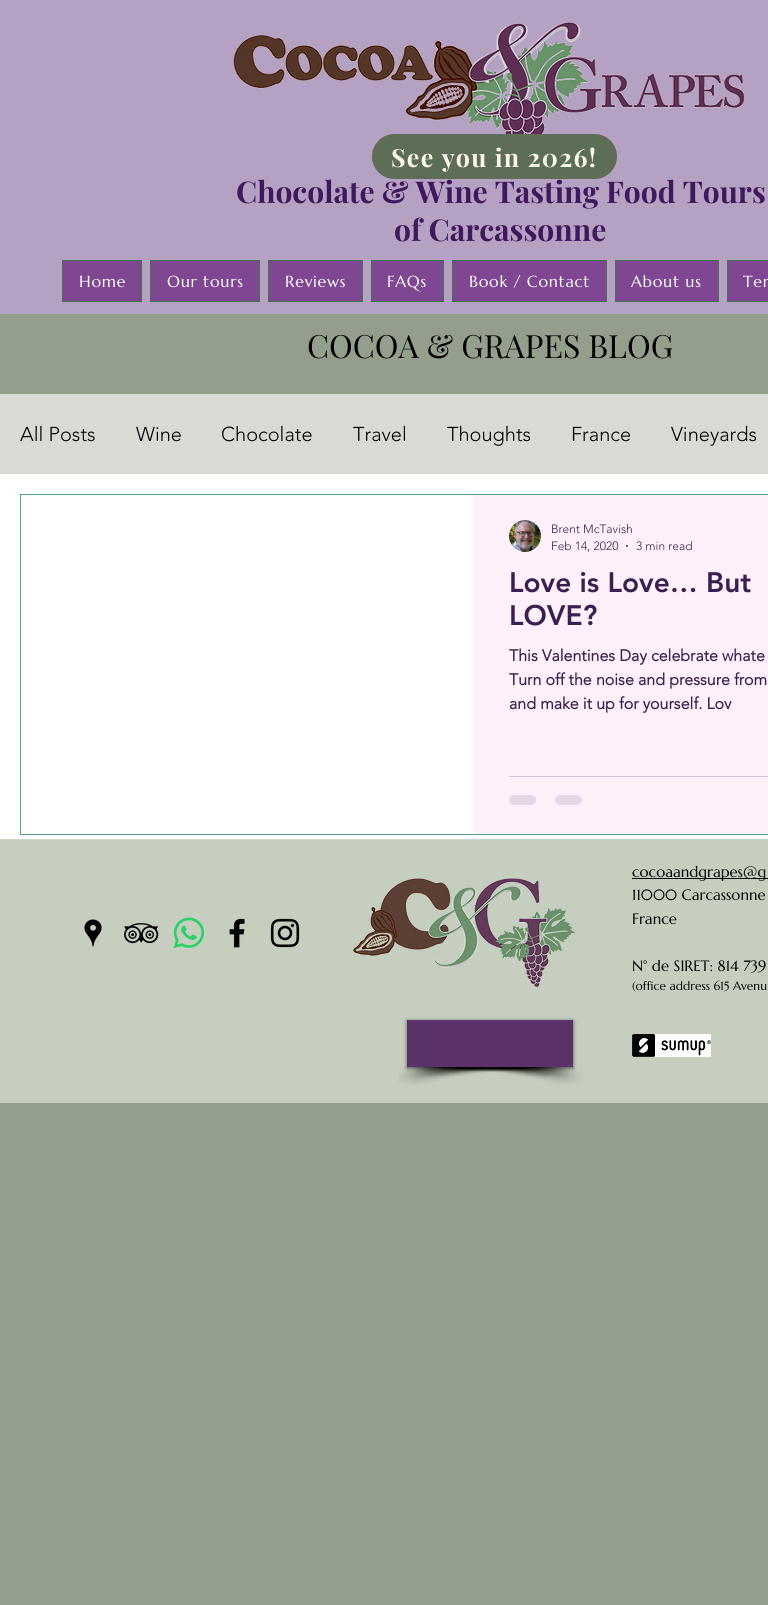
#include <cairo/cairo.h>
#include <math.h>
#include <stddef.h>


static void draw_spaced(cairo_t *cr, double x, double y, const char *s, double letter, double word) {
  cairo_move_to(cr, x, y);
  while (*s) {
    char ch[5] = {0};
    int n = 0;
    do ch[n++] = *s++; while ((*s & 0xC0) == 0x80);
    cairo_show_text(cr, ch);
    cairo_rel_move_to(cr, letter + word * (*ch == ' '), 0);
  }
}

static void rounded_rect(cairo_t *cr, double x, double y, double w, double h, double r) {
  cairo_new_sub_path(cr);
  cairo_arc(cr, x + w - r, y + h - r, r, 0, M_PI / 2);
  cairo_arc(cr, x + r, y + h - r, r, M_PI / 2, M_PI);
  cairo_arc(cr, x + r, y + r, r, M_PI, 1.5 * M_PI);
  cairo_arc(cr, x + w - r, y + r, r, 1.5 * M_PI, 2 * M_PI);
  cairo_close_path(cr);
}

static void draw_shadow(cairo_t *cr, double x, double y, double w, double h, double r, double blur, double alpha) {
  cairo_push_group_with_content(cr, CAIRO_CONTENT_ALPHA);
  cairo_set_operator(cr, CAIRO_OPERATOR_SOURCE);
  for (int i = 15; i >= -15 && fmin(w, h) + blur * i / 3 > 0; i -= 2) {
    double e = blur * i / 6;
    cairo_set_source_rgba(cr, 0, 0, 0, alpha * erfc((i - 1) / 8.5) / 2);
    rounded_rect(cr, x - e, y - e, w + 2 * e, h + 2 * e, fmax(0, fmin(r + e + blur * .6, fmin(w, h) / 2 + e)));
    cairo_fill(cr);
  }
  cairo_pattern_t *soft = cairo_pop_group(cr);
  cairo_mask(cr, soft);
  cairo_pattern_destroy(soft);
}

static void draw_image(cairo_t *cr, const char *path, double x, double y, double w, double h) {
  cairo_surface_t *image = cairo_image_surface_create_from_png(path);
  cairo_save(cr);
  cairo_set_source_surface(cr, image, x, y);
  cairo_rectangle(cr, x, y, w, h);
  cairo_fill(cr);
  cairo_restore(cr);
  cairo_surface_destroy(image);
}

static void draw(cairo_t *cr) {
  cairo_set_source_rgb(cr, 147 / 255.0, 158 / 255.0, 140 / 255.0);
  cairo_paint(cr);
  cairo_set_source_rgb(cr, 181 / 255.0, 161 / 255.0, 193 / 255.0);
  cairo_rectangle(cr, 0, 0, 768, 314);
  cairo_fill(cr);
  draw_image(cr, "images/1.png", 233, 22, 512, 112);
  cairo_set_source_rgb(cr, 94 / 255.0, 109 / 255.0, 85 / 255.0);
  rounded_rect(cr, 372, 134, 245, 45, 22.5);
  cairo_fill(cr);
  cairo_set_source_rgb(cr, 127 / 255.0, 71 / 255.0, 146 / 255.0);
  cairo_rectangle(cr, 62.5, 260.5, 79, 41);
  cairo_fill_preserve(cr);
  cairo_set_source_rgb(cr, 63 / 255.0, 118 / 255.0, 82 / 255.0);
  cairo_set_line_width(cr, 1);
  cairo_stroke(cr);
  cairo_set_source_rgb(cr, 127 / 255.0, 71 / 255.0, 146 / 255.0);
  cairo_rectangle(cr, 150.5, 260.5, 109, 41);
  cairo_fill_preserve(cr);
  cairo_set_source_rgb(cr, 63 / 255.0, 118 / 255.0, 82 / 255.0);
  cairo_stroke(cr);
  cairo_set_source_rgb(cr, 127 / 255.0, 71 / 255.0, 146 / 255.0);
  cairo_rectangle(cr, 268.5, 260.5, 94, 41);
  cairo_fill_preserve(cr);
  cairo_set_source_rgb(cr, 63 / 255.0, 118 / 255.0, 82 / 255.0);
  cairo_stroke(cr);
  cairo_set_source_rgb(cr, 127 / 255.0, 71 / 255.0, 146 / 255.0);
  cairo_rectangle(cr, 371.5, 260.5, 72, 41);
  cairo_fill_preserve(cr);
  cairo_set_source_rgb(cr, 63 / 255.0, 118 / 255.0, 82 / 255.0);
  cairo_stroke(cr);
  cairo_set_source_rgb(cr, 127 / 255.0, 71 / 255.0, 146 / 255.0);
  cairo_rectangle(cr, 452.5, 260.5, 154, 41);
  cairo_fill_preserve(cr);
  cairo_set_source_rgb(cr, 63 / 255.0, 118 / 255.0, 82 / 255.0);
  cairo_stroke(cr);
  cairo_set_source_rgb(cr, 127 / 255.0, 71 / 255.0, 146 / 255.0);
  cairo_rectangle(cr, 615.5, 260.5, 103, 41);
  cairo_fill_preserve(cr);
  cairo_set_source_rgb(cr, 63 / 255.0, 118 / 255.0, 82 / 255.0);
  cairo_stroke(cr);
  cairo_set_source_rgb(cr, 127 / 255.0, 71 / 255.0, 146 / 255.0);
  cairo_rectangle(cr, 727.5, 260.5, 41, 41);
  cairo_fill_preserve(cr);
  cairo_set_source_rgb(cr, 63 / 255.0, 118 / 255.0, 82 / 255.0);
  cairo_stroke(cr);
  cairo_set_source_rgb(cr, 1, 1, 1);
  cairo_rectangle(cr, 0, 474, 768, 365);
  cairo_fill(cr);
  cairo_set_source_rgb(cr, 215 / 255.0, 219 / 255.0, 212 / 255.0);
  cairo_rectangle(cr, 0, 394, 768, 80);
  cairo_fill(cr);
  cairo_rectangle(cr, 20.5, 494.5, 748, 340);
  cairo_set_source_rgb(cr, 85 / 255.0, 163 / 255.0, 134 / 255.0);
  cairo_stroke(cr);
  cairo_set_source_rgb(cr, 1, 240 / 255.0, 250 / 255.0);
  cairo_rectangle(cr, 473, 495, 295, 339);
  cairo_fill(cr);
  draw_image(cr, "images/2.png", 509, 520, 32, 32);
  cairo_set_source_rgb(cr, 59 / 255.0, 31 / 255.0, 80 / 255.0);
  cairo_arc(cr, 627, 546, 1, 0, 2 * M_PI);
  cairo_fill(cr);
  cairo_set_source_rgb(cr, 216 / 255.0, 198 / 255.0, 216 / 255.0);
  cairo_rectangle(cr, 509, 776, 259, 1);
  cairo_fill(cr);
  cairo_set_source_rgb(cr, 231 / 255.0, 215 / 255.0, 230 / 255.0);
  rounded_rect(cr, 509, 795, 27, 10, 5);
  cairo_fill(cr);
  rounded_rect(cr, 555, 795, 27, 10, 5);
  cairo_fill(cr);
  cairo_set_source_rgb(cr, 197 / 255.0, 206 / 255.0, 191 / 255.0);
  cairo_rectangle(cr, 0, 840, 768, 263);
  cairo_fill(cr);
  cairo_set_source_rgb(cr, 206 / 255.0, 213 / 255.0, 201 / 255.0);
  cairo_rectangle(cr, 0, 839, 768, 1);
  cairo_fill(cr);
  draw_image(cr, "images/3.png", 84, 919, 18, 28);
  draw_image(cr, "images/4.png", 124, 923, 35, 21);
  draw_image(cr, "images/5.png", 173, 917, 32, 32);
  draw_image(cr, "images/6.png", 229, 918, 16, 30);
  draw_image(cr, "images/7.png", 270, 918, 30, 30);
  draw_image(cr, "images/8.png", 353, 878, 223, 109);
  cairo_set_source_rgb(cr, 0, 0, 0);
  cairo_rectangle(cr, 632, 878, 136, 1);
  cairo_fill(cr);
  draw_image(cr, "images/9.png", 398, 1067, 154, 18);
  draw_image(cr, "images/10.png", 460, 1067, 122, 18);
  cairo_set_source_rgb(cr, 0, 0, 0);
  draw_shadow(cr, 407, 1021, 166, 47, 0, 2, 0.6);
  cairo_set_source_rgb(cr, 91 / 255.0, 49 / 255.0, 105 / 255.0);
  cairo_rectangle(cr, 407, 1020, 166, 47);
  cairo_fill(cr);
  draw_image(cr, "images/11.png", 632, 1034, 79, 23);
  cairo_select_font_face(cr, "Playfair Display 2", CAIRO_FONT_SLANT_NORMAL, CAIRO_FONT_WEIGHT_BOLD);
  cairo_set_font_size(cr, 25);
  cairo_set_source_rgb(cr, 252 / 255.0, 248 / 255.0, 237 / 255.0);
  draw_spaced(cr, 391, 167, "See you in 2026!", 1.25, 0);
  cairo_select_font_face(cr, "Playfair Display", CAIRO_FONT_SLANT_NORMAL, CAIRO_FONT_WEIGHT_BOLD);
  cairo_set_font_size(cr, 30);
  cairo_set_source_rgb(cr, 63 / 255.0, 24 / 255.0, 93 / 255.0);
  cairo_move_to(cr, 236, 203);
  cairo_show_text(cr, "Chocolate & Wine Tasting Food Tours");
  cairo_move_to(cr, 394, 241);
  cairo_show_text(cr, "of Carcassonne");
  cairo_select_font_face(cr, "Marcellus", CAIRO_FONT_SLANT_NORMAL, CAIRO_FONT_WEIGHT_NORMAL);
  cairo_set_font_size(cr, 16);
  cairo_set_source_rgb(cr, 1, 1, 1);
  draw_spaced(cr, 79, 287, "Home", 0.75, 0);
  draw_spaced(cr, 167, 287, "Our tours", 0.75, 0);
  draw_spaced(cr, 285, 287, "Reviews", 0.75, 0);
  draw_spaced(cr, 387, 287, "FAQs", 0.75, 0);
  draw_spaced(cr, 469, 287, "Book / Contact", 0.75, 0);
  draw_spaced(cr, 631, 287, "About us", 0.75, 0);
  draw_spaced(cr, 743, 287, "Ter", 0.75, 0);
  cairo_select_font_face(cr, "Playfair Display", CAIRO_FONT_SLANT_NORMAL, CAIRO_FONT_WEIGHT_NORMAL);
  cairo_set_font_size(cr, 32);
  cairo_set_source_rgb(cr, 0, 0, 0);
  cairo_move_to(cr, 307, 358);
  cairo_show_text(cr, "COCOA & GRAPES BLOG");
  cairo_select_font_face(cr, "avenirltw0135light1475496 Light", CAIRO_FONT_SLANT_NORMAL, CAIRO_FONT_WEIGHT_NORMAL);
  cairo_set_font_size(cr, 20);
  cairo_move_to(cr, 20, 441);
  cairo_show_text(cr, "All Posts");
  cairo_move_to(cr, 136, 441);
  cairo_show_text(cr, "Wine");
  cairo_move_to(cr, 221, 441);
  cairo_show_text(cr, "Chocolate");
  cairo_move_to(cr, 353, 441);
  cairo_show_text(cr, "Travel");
  cairo_move_to(cr, 447, 441);
  cairo_show_text(cr, "Thoughts");
  cairo_move_to(cr, 571, 441);
  cairo_show_text(cr, "France");
  cairo_move_to(cr, 671, 441);
  cairo_show_text(cr, "Vineyards");
  cairo_set_font_size(cr, 12);
  cairo_set_source_rgb(cr, 59 / 255.0, 31 / 255.0, 80 / 255.0);
  cairo_move_to(cr, 551, 533);
  cairo_show_text(cr, "Brent McTavish");
  cairo_move_to(cr, 551, 550);
  cairo_show_text(cr, "Feb 14, 2020");
  cairo_move_to(cr, 636, 550);
  cairo_show_text(cr, "3 min read");
  cairo_select_font_face(cr, "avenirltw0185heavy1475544 Black", CAIRO_FONT_SLANT_NORMAL, CAIRO_FONT_WEIGHT_NORMAL);
  cairo_set_font_size(cr, 28);
  cairo_move_to(cr, 509, 592);
  cairo_show_text(cr, "Love is Love… But");
  cairo_move_to(cr, 509, 625);
  cairo_show_text(cr, "LOVE?");
  cairo_select_font_face(cr, "avenirltw0135light1475496", CAIRO_FONT_SLANT_NORMAL, CAIRO_FONT_WEIGHT_BOLD);
  cairo_set_font_size(cr, 16);
  cairo_move_to(cr, 509, 661);
  cairo_show_text(cr, "This Valentines Day celebrate whate");
  cairo_move_to(cr, 509, 685);
  cairo_show_text(cr, "Turn off the noise and pressure from");
  cairo_move_to(cr, 509, 709);
  cairo_show_text(cr, "and make it up for yourself. Lov");
  cairo_select_font_face(cr, "Marcellus", CAIRO_FONT_SLANT_NORMAL, CAIRO_FONT_WEIGHT_NORMAL);
  cairo_set_font_size(cr, 15);
  cairo_set_source_rgb(cr, 0, 0, 0);
  cairo_move_to(cr, 632, 877);
  cairo_show_text(cr, "cocoaandgrapes@g");
  cairo_move_to(cr, 632, 900);
  cairo_show_text(cr, "11000 Carcassonne");
  cairo_move_to(cr, 632, 924);
  cairo_show_text(cr, "France");
  cairo_move_to(cr, 632, 971);
  cairo_show_text(cr, "N° de SIRET: 814 739");
  cairo_set_font_size(cr, 12);
  cairo_move_to(cr, 632, 990);
  cairo_show_text(cr, "(office address 615 Avenu");
}

int main(void) {
  cairo_surface_t *surface = cairo_image_surface_create(CAIRO_FORMAT_RGB24, 768, 1605);
  cairo_t *cr = cairo_create(surface);
  cairo_font_options_t *options = cairo_font_options_create();
  cairo_font_options_set_hint_metrics(options, CAIRO_HINT_METRICS_OFF);
  cairo_font_options_set_hint_style(options, CAIRO_HINT_STYLE_NONE);
  cairo_set_font_options(cr, options);
  cairo_set_miter_limit(cr, 4);
  draw(cr);
  cairo_surface_write_to_png(surface, "out.png");
  cairo_font_options_destroy(options);
  cairo_destroy(cr);
  cairo_surface_destroy(surface);
  return 0;
}
